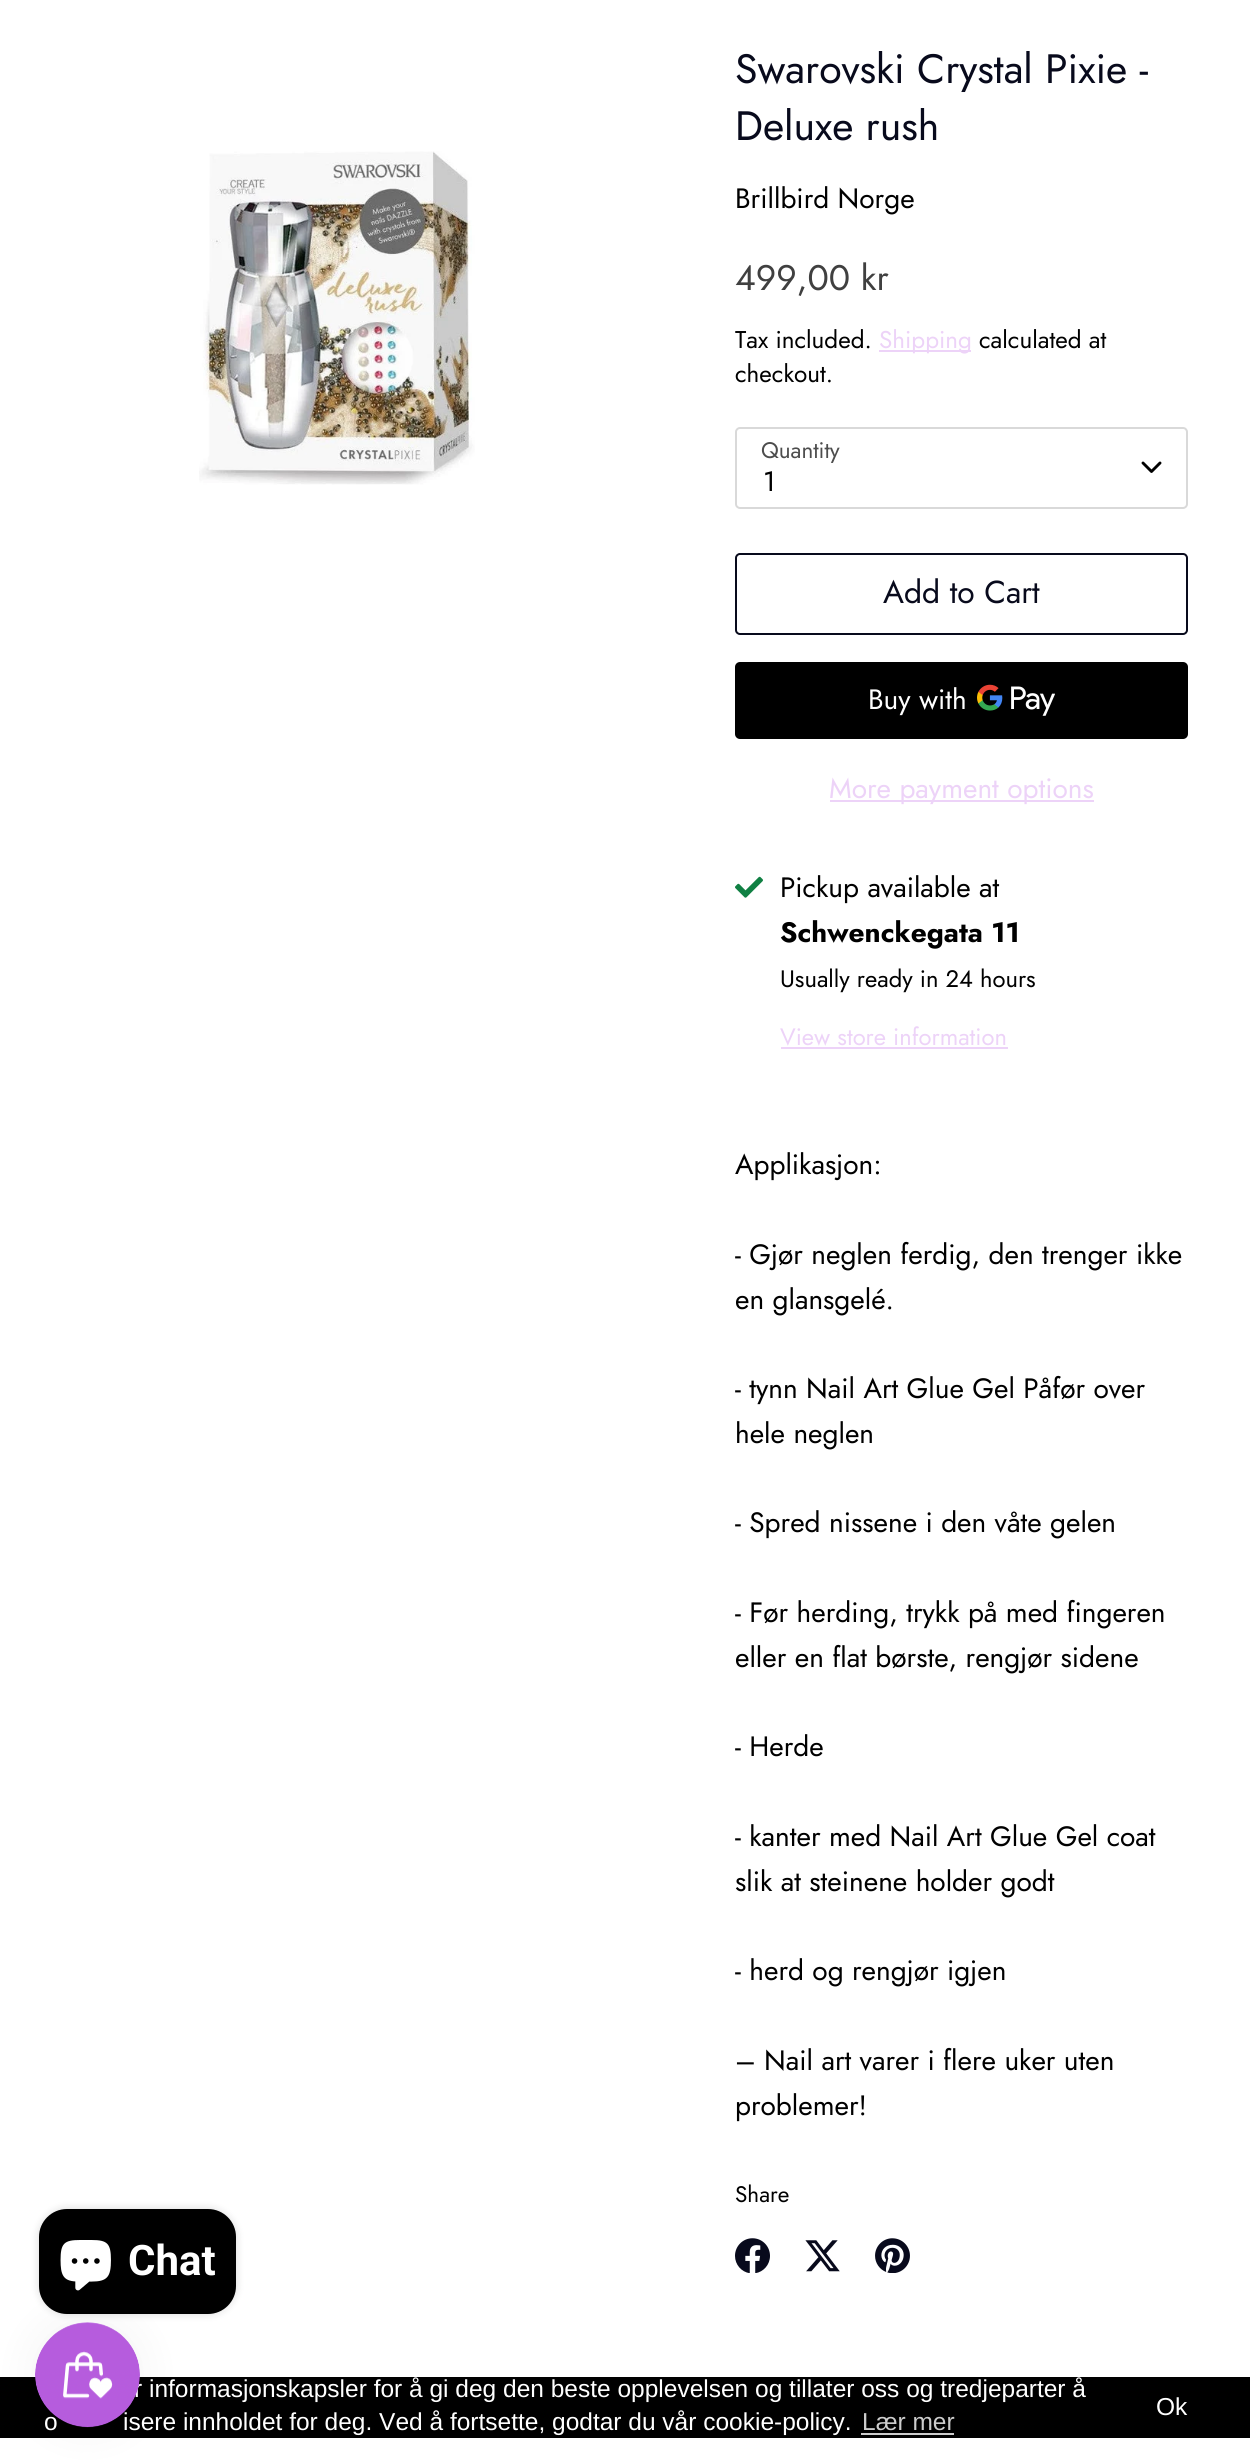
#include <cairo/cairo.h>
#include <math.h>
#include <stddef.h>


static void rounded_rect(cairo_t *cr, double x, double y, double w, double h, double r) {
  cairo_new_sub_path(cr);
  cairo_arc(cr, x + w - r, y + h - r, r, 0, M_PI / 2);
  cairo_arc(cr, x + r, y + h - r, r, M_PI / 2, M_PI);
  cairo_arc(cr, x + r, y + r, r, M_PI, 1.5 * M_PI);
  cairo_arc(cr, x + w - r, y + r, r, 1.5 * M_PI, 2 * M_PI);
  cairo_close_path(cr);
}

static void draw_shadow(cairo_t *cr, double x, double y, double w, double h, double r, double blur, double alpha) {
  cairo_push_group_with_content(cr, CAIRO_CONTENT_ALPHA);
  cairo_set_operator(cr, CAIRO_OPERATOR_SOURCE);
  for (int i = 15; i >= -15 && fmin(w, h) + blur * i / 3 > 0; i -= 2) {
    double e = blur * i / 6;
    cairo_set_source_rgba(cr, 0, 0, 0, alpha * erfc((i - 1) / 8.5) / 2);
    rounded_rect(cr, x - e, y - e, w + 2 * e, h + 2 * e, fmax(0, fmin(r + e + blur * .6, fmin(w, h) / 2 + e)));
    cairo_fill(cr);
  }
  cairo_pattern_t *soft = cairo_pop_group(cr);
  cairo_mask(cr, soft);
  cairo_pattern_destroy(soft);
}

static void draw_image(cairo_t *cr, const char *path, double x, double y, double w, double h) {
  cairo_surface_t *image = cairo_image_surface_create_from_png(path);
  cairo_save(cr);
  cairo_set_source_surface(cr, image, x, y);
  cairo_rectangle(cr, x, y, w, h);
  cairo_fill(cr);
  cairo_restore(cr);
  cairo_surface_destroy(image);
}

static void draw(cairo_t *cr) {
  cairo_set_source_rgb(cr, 1, 1, 1);
  cairo_paint(cr);
  draw_image(cr, "images/1.png", 199, 151, 276, 334);
  cairo_set_source_rgb(cr, 237 / 255.0, 211 / 255.0, 248 / 255.0);
  cairo_rectangle(cr, 879, 350, 92, 2);
  cairo_fill(cr);
  rounded_rect(cr, 736, 428, 451, 80, 4);
  cairo_set_source_rgb(cr, 217 / 255.0, 217 / 255.0, 217 / 255.0);
  cairo_stroke(cr);
  cairo_new_path(cr);
  cairo_move_to(cr, 1143, 463);
  cairo_line_to(cr, 1151.5, 471.5);
  cairo_line_to(cr, 1160, 463);
  cairo_set_source_rgb(cr, 0, 0, 0);
  cairo_set_line_width(cr, 2.9);
  cairo_set_line_cap(cr, CAIRO_LINE_CAP_ROUND);
  cairo_set_line_join(cr, CAIRO_LINE_JOIN_ROUND);
  cairo_stroke(cr);
  rounded_rect(cr, 736, 554, 451, 80, 4);
  cairo_set_source_rgb(cr, 8 / 255.0, 10 / 255.0, 28 / 255.0);
  cairo_set_line_width(cr, 2);
  cairo_set_line_cap(cr, CAIRO_LINE_CAP_BUTT);
  cairo_set_line_join(cr, CAIRO_LINE_JOIN_MITER);
  cairo_stroke(cr);
  cairo_set_source_rgb(cr, 0, 0, 0);
  rounded_rect(cr, 735, 662, 453, 77, 5);
  cairo_fill(cr);
  draw_image(cr, "images/2.png", 977, 684, 78, 32);
  cairo_set_source_rgb(cr, 237 / 255.0, 211 / 255.0, 248 / 255.0);
  cairo_rectangle(cr, 830, 800, 264, 2);
  cairo_fill(cr);
  draw_image(cr, "images/3.png", 735, 876, 28, 22);
  cairo_rectangle(cr, 781, 1047, 227, 2);
  cairo_fill(cr);
  draw_image(cr, "images/4.png", 735, 2238, 35, 35);
  draw_image(cr, "images/5.png", 805, 2240, 35, 32);
  draw_image(cr, "images/6.png", 875, 2238, 35, 35);
  cairo_set_source_rgb(cr, 0, 0, 0);
  draw_shadow(cr, 39, 2209, 197, 105, 28, 4.5, 0.15);
  cairo_set_source_rgb(cr, 0, 0, 0);
  rounded_rect(cr, 39, 2209, 197, 105, 28);
  cairo_fill(cr);
  draw_image(cr, "images/7.png", 60, 2240, 51, 51);
  cairo_rectangle(cr, 0, 2377, 1250, 61);
  cairo_fill(cr);
  cairo_set_source_rgb(cr, 0, 0, 0);
  draw_shadow(cr, 35, 2322, 105, 105, 52.5, 22, 0.05);
  cairo_set_source_rgb(cr, 204 / 255.0, 204 / 255.0, 204 / 255.0);
  cairo_rectangle(cr, 861, 2433, 93, 2);
  cairo_fill(cr);
  cairo_select_font_face(cr, "Jost", CAIRO_FONT_SLANT_NORMAL, CAIRO_FONT_WEIGHT_NORMAL);
  cairo_set_font_size(cr, 41);
  cairo_set_source_rgb(cr, 8 / 255.0, 10 / 255.0, 28 / 255.0);
  cairo_move_to(cr, 735, 83);
  cairo_show_text(cr, "Swarovski Crystal Pixie -");
  cairo_move_to(cr, 735, 140);
  cairo_show_text(cr, "Deluxe rush");
  cairo_set_font_size(cr, 28);
  cairo_set_source_rgb(cr, 0, 0, 0);
  cairo_move_to(cr, 735, 208);
  cairo_show_text(cr, "Brillbird Norge");
  cairo_set_font_size(cr, 35.5);
  cairo_set_source_rgb(cr, 64 / 255.0, 64 / 255.0, 64 / 255.0);
  cairo_move_to(cr, 735, 290);
  cairo_show_text(cr, "499,00 kr");
  cairo_set_font_size(cr, 24.25);
  cairo_set_source_rgb(cr, 0, 0, 0);
  cairo_move_to(cr, 735, 348);
  cairo_show_text(cr, "Tax included.");
  cairo_set_source_rgb(cr, 237 / 255.0, 211 / 255.0, 248 / 255.0);
  cairo_move_to(cr, 879, 348);
  cairo_show_text(cr, "Shipping");
  cairo_set_source_rgb(cr, 0, 0, 0);
  cairo_move_to(cr, 979, 348);
  cairo_show_text(cr, "calculated at");
  cairo_move_to(cr, 735, 382);
  cairo_show_text(cr, "checkout.");
  cairo_set_font_size(cr, 22.5);
  cairo_set_source_rgb(cr, 77 / 255.0, 77 / 255.0, 77 / 255.0);
  cairo_move_to(cr, 761, 458);
  cairo_show_text(cr, "Quantity");
  cairo_set_font_size(cr, 28);
  cairo_set_source_rgb(cr, 0, 0, 0);
  cairo_move_to(cr, 763, 491);
  cairo_show_text(cr, "1");
  cairo_set_font_size(cr, 31.75);
  cairo_set_source_rgb(cr, 8 / 255.0, 10 / 255.0, 28 / 255.0);
  cairo_move_to(cr, 883, 603);
  cairo_show_text(cr, "Add to Cart");
  cairo_set_font_size(cr, 28);
  cairo_set_source_rgb(cr, 1, 1, 1);
  cairo_move_to(cr, 868, 709);
  cairo_show_text(cr, "Buy with");
  cairo_set_source_rgb(cr, 237 / 255.0, 211 / 255.0, 248 / 255.0);
  cairo_move_to(cr, 829, 798);
  cairo_show_text(cr, "More payment options");
  cairo_set_source_rgb(cr, 0, 0, 0);
  cairo_move_to(cr, 780, 897);
  cairo_show_text(cr, "Pickup available at");
  cairo_select_font_face(cr, "Jost", CAIRO_FONT_SLANT_NORMAL, CAIRO_FONT_WEIGHT_BOLD);
  cairo_move_to(cr, 780, 942);
  cairo_show_text(cr, "Schwenckegata 11");
  cairo_select_font_face(cr, "Jost", CAIRO_FONT_SLANT_NORMAL, CAIRO_FONT_WEIGHT_NORMAL);
  cairo_set_font_size(cr, 23.75);
  cairo_move_to(cr, 780, 987);
  cairo_show_text(cr, "Usually ready in 24 hours");
  cairo_set_source_rgb(cr, 237 / 255.0, 211 / 255.0, 248 / 255.0);
  cairo_move_to(cr, 780, 1045);
  cairo_show_text(cr, "View store information");
  cairo_set_font_size(cr, 28);
  cairo_set_source_rgb(cr, 0, 0, 0);
  cairo_move_to(cr, 735, 1174);
  cairo_show_text(cr, "Applikasjon:");
  cairo_move_to(cr, 735, 1264);
  cairo_show_text(cr, "- Gjør neglen ferdig, den trenger ikke");
  cairo_move_to(cr, 735, 1309);
  cairo_show_text(cr, "en glansgelé.");
  cairo_move_to(cr, 735, 1398);
  cairo_show_text(cr, "- tynn Nail Art Glue Gel Påfør over");
  cairo_move_to(cr, 735, 1443);
  cairo_show_text(cr, "hele neglen");
  cairo_move_to(cr, 735, 1532);
  cairo_show_text(cr, "- Spred nissene i den våte gelen");
  cairo_move_to(cr, 735, 1622);
  cairo_show_text(cr, "- Før herding, trykk på med fingeren");
  cairo_move_to(cr, 735, 1667);
  cairo_show_text(cr, "eller en flat børste, rengjør sidene");
  cairo_move_to(cr, 735, 1756);
  cairo_show_text(cr, "- Herde");
  cairo_move_to(cr, 735, 1846);
  cairo_show_text(cr, "- kanter med Nail Art Glue Gel coat");
  cairo_move_to(cr, 735, 1891);
  cairo_show_text(cr, "slik at steinene holder godt");
  cairo_move_to(cr, 735, 1980);
  cairo_show_text(cr, "- herd og rengjør igjen");
  cairo_move_to(cr, 735, 2070);
  cairo_show_text(cr, "– Nail art varer i flere uker uten");
  cairo_move_to(cr, 735, 2115);
  cairo_show_text(cr, "problemer!");
  cairo_set_font_size(cr, 22.5);
  cairo_move_to(cr, 735, 2202);
  cairo_show_text(cr, "Share");
  cairo_select_font_face(cr, "Roboto", CAIRO_FONT_SLANT_NORMAL, CAIRO_FONT_WEIGHT_BOLD);
  cairo_set_font_size(cr, 42);
  cairo_set_source_rgb(cr, 1, 1, 1);
  cairo_move_to(cr, 128, 2275);
  cairo_show_text(cr, "Chat");
  cairo_select_font_face(cr, "Liberation Sans", CAIRO_FONT_SLANT_NORMAL, CAIRO_FONT_WEIGHT_NORMAL);
  cairo_set_font_size(cr, 24.5);
  cairo_move_to(cr, 134, 2397);
  cairo_show_text(cr, "r informasjonskapsler for å gi deg den beste opplevelsen og tillater oss og tredjeparter å");
  cairo_move_to(cr, 44, 2430);
  cairo_show_text(cr, "o");
  cairo_move_to(cr, 123, 2430);
  cairo_show_text(cr, "isere innholdet for deg. Ved å fortsette, godtar du vår cookie-policy.");
  draw_image(cr, "images/8.png", 35, 2322, 105, 106);
  cairo_set_source_rgb(cr, 204 / 255.0, 204 / 255.0, 204 / 255.0);
  cairo_move_to(cr, 862, 2430);
  cairo_show_text(cr, "Lær mer");
  cairo_set_source_rgb(cr, 1, 1, 1);
  cairo_move_to(cr, 1156, 2415);
  cairo_show_text(cr, "Ok");
}

int main(void) {
  cairo_surface_t *surface = cairo_image_surface_create(CAIRO_FORMAT_RGB24, 1250, 2461);
  cairo_t *cr = cairo_create(surface);
  cairo_font_options_t *options = cairo_font_options_create();
  cairo_font_options_set_hint_metrics(options, CAIRO_HINT_METRICS_OFF);
  cairo_font_options_set_hint_style(options, CAIRO_HINT_STYLE_NONE);
  cairo_set_font_options(cr, options);
  cairo_set_miter_limit(cr, 4);
  draw(cr);
  cairo_surface_write_to_png(surface, "out.png");
  cairo_font_options_destroy(options);
  cairo_destroy(cr);
  cairo_surface_destroy(surface);
  return 0;
}
